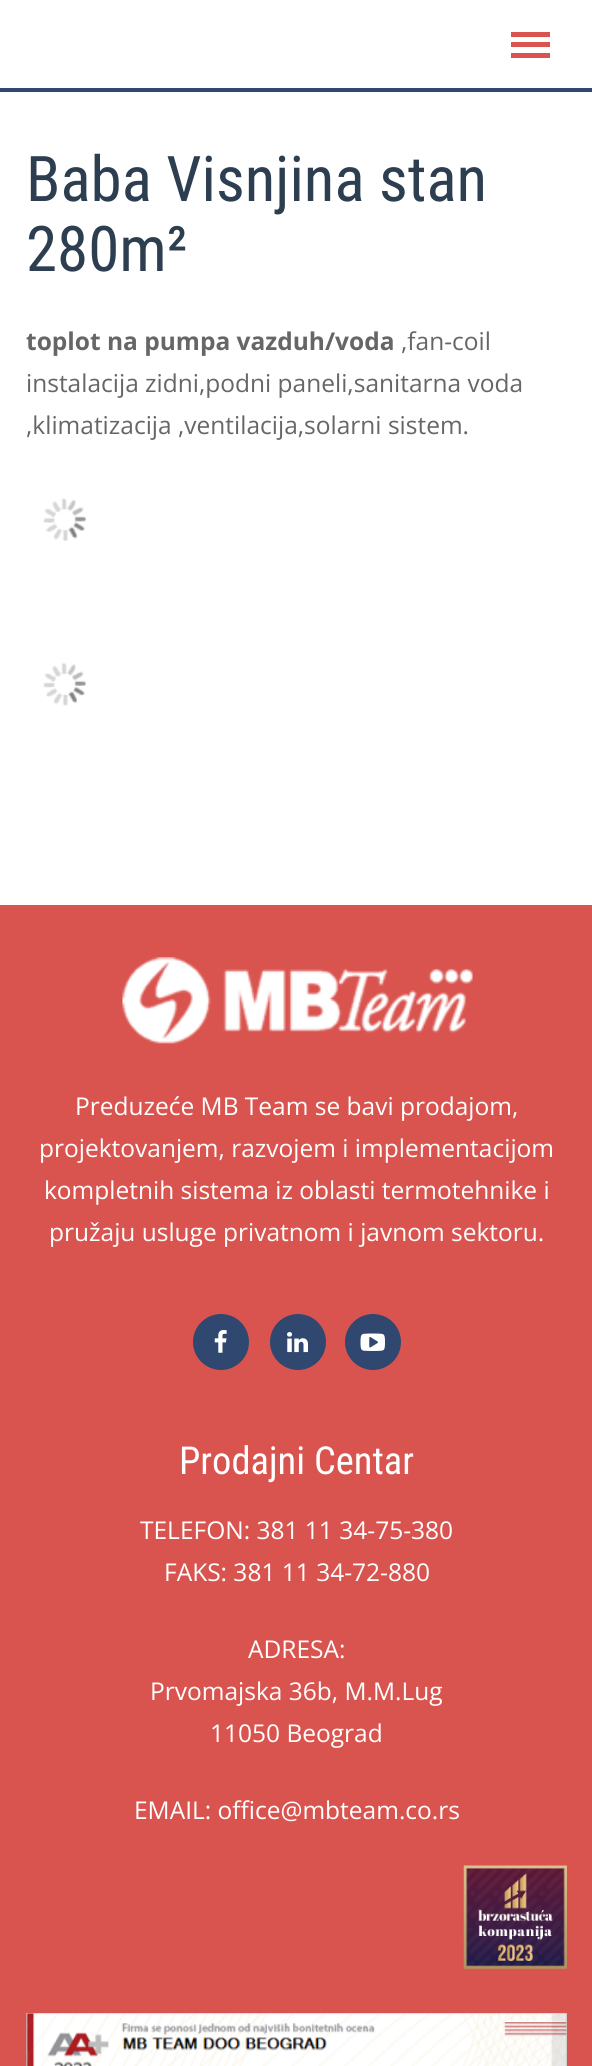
#include <cairo/cairo.h>
#include <math.h>
#include <stddef.h>


static void draw_image(cairo_t *cr, const char *path, double x, double y, double w, double h) {
  cairo_surface_t *image = cairo_image_surface_create_from_png(path);
  cairo_save(cr);
  cairo_set_source_surface(cr, image, x, y);
  cairo_rectangle(cr, x, y, w, h);
  cairo_fill(cr);
  cairo_restore(cr);
  cairo_surface_destroy(image);
}

static void draw(cairo_t *cr) {
  cairo_set_source_rgb(cr, 1, 1, 1);
  cairo_paint(cr);
  cairo_set_source_rgb(cr, 48 / 255.0, 71 / 255.0, 112 / 255.0);
  cairo_rectangle(cr, 0, 88, 592, 4);
  cairo_fill(cr);
  cairo_set_source_rgb(cr, 217 / 255.0, 84 / 255.0, 79 / 255.0);
  cairo_rectangle(cr, 511, 32, 39, 5);
  cairo_fill(cr);
  cairo_rectangle(cr, 511, 42, 39, 5);
  cairo_fill(cr);
  cairo_rectangle(cr, 511, 53, 39, 5);
  cairo_fill(cr);
  draw_image(cr, "images/1.png", 43, 498, 43, 43);
  draw_image(cr, "images/2.png", 43, 662, 43, 44);
  cairo_rectangle(cr, 0, 905, 592, 1161);
  cairo_fill(cr);
  draw_image(cr, "images/3.png", 122, 957, 351, 87);
  cairo_set_source_rgb(cr, 48 / 255.0, 71 / 255.0, 112 / 255.0);
  cairo_arc(cr, 221, 1342, 28, 0, 2 * M_PI);
  cairo_fill(cr);
  draw_image(cr, "images/4.png", 214, 1330, 13, 23);
  cairo_arc(cr, 298, 1342, 28, 0, 2 * M_PI);
  cairo_fill(cr);
  draw_image(cr, "images/5.png", 287, 1332, 21, 21);
  cairo_arc(cr, 373, 1342, 28, 0, 2 * M_PI);
  cairo_fill(cr);
  draw_image(cr, "images/6.png", 360, 1333, 25, 18);
  draw_image(cr, "images/7.png", 463, 1865, 104, 104);
  draw_image(cr, "images/8.png", 26, 2013, 541, 53);
  cairo_select_font_face(cr, "Roboto Condensed", CAIRO_FONT_SLANT_NORMAL, CAIRO_FONT_WEIGHT_NORMAL);
  cairo_set_font_size(cr, 63);
  cairo_set_source_rgb(cr, 44 / 255.0, 62 / 255.0, 80 / 255.0);
  cairo_move_to(cr, 26, 201);
  cairo_show_text(cr, "Baba Visnjina stan");
  cairo_move_to(cr, 26, 271);
  cairo_show_text(cr, "280m²");
  cairo_select_font_face(cr, "Open Sans", CAIRO_FONT_SLANT_NORMAL, CAIRO_FONT_WEIGHT_BOLD);
  cairo_set_font_size(cr, 24.5);
  cairo_set_source_rgb(cr, 102 / 255.0, 102 / 255.0, 102 / 255.0);
  cairo_move_to(cr, 26, 350);
  cairo_show_text(cr, "toplot na pumpa vazduh/voda");
  cairo_select_font_face(cr, "Open Sans", CAIRO_FONT_SLANT_NORMAL, CAIRO_FONT_WEIGHT_NORMAL);
  cairo_move_to(cr, 401, 350);
  cairo_show_text(cr, ",fan-coil");
  cairo_move_to(cr, 26, 392);
  cairo_show_text(cr, "instalacija zidni,podni paneli,sanitarna voda");
  cairo_move_to(cr, 26, 434);
  cairo_show_text(cr, ",klimatizacija ,ventilacija,solarni sistem.");
  cairo_set_source_rgb(cr, 1, 1, 1);
  cairo_move_to(cr, 75, 1115);
  cairo_show_text(cr, "Preduzeće MB Team se bavi prodajom,");
  cairo_move_to(cr, 39, 1157);
  cairo_show_text(cr, "projektovanjem, razvojem i implementacijom");
  cairo_move_to(cr, 44, 1199);
  cairo_show_text(cr, "kompletnih sistema iz oblasti termotehnike i");
  cairo_move_to(cr, 49, 1241);
  cairo_show_text(cr, "pružaju usluge privatnom i javnom sektoru.");
  cairo_select_font_face(cr, "Roboto Condensed", CAIRO_FONT_SLANT_NORMAL, CAIRO_FONT_WEIGHT_NORMAL);
  cairo_set_font_size(cr, 38.5);
  cairo_move_to(cr, 179, 1474);
  cairo_show_text(cr, "Prodajni Centar");
  cairo_select_font_face(cr, "Open Sans", CAIRO_FONT_SLANT_NORMAL, CAIRO_FONT_WEIGHT_NORMAL);
  cairo_set_font_size(cr, 24.5);
  cairo_move_to(cr, 140, 1539);
  cairo_show_text(cr, "TELEFON: 381 11 34-75-380");
  cairo_move_to(cr, 164, 1581);
  cairo_show_text(cr, "FAKS: 381 11 34-72-880");
  cairo_move_to(cr, 248, 1658);
  cairo_show_text(cr, "ADRESA:");
  cairo_move_to(cr, 150, 1700);
  cairo_show_text(cr, "Prvomajska 36b, M.M.Lug");
  cairo_move_to(cr, 210, 1742);
  cairo_show_text(cr, "11050 Beograd");
  cairo_move_to(cr, 134, 1819);
  cairo_show_text(cr, "EMAIL: office@mbteam.co.rs");
}

int main(void) {
  cairo_surface_t *surface = cairo_image_surface_create(CAIRO_FORMAT_RGB24, 592, 2066);
  cairo_t *cr = cairo_create(surface);
  cairo_font_options_t *options = cairo_font_options_create();
  cairo_font_options_set_hint_metrics(options, CAIRO_HINT_METRICS_OFF);
  cairo_font_options_set_hint_style(options, CAIRO_HINT_STYLE_NONE);
  cairo_set_font_options(cr, options);
  cairo_set_miter_limit(cr, 4);
  draw(cr);
  cairo_surface_write_to_png(surface, "out.png");
  cairo_font_options_destroy(options);
  cairo_destroy(cr);
  cairo_surface_destroy(surface);
  return 0;
}
